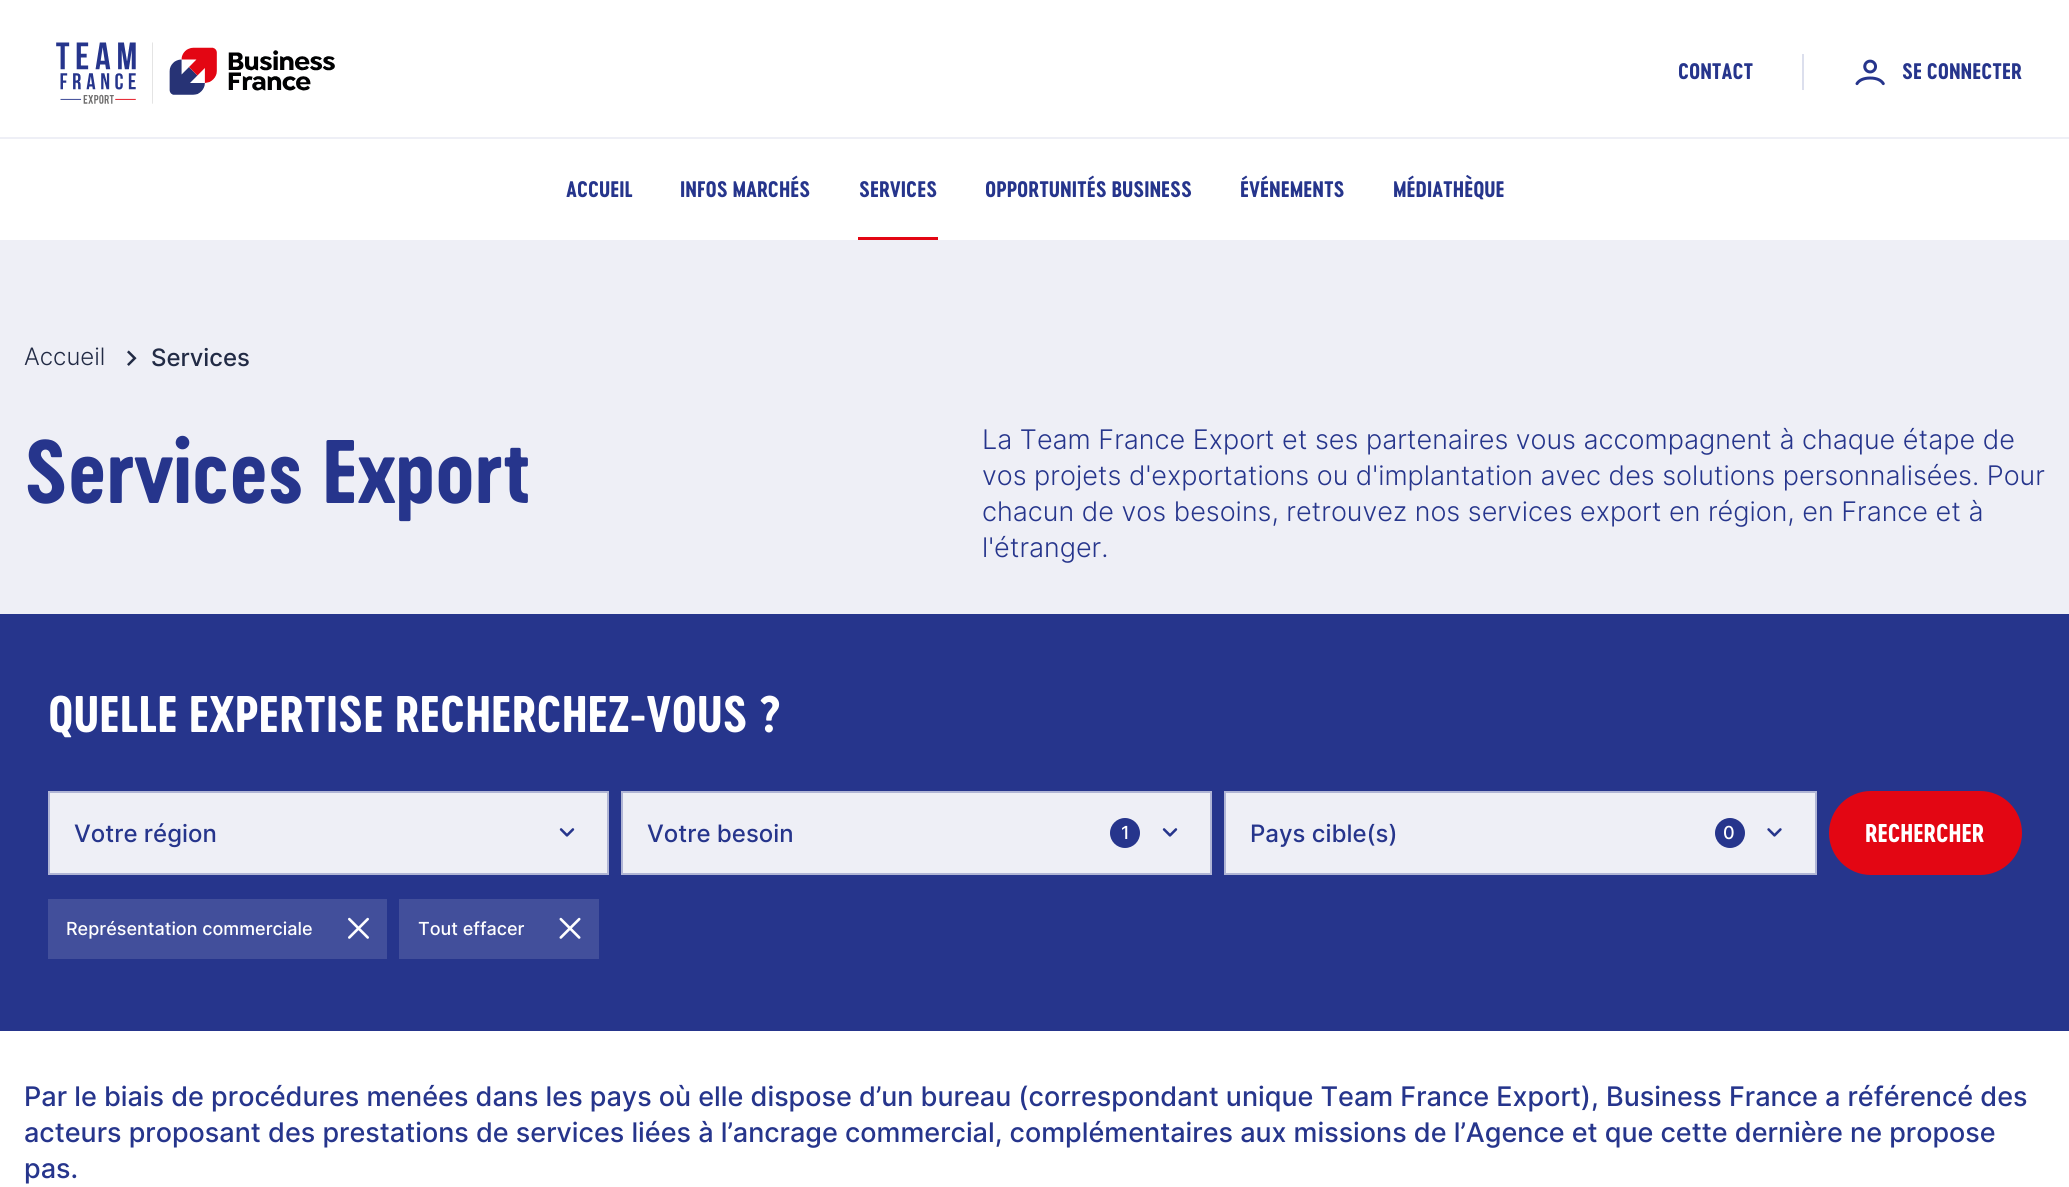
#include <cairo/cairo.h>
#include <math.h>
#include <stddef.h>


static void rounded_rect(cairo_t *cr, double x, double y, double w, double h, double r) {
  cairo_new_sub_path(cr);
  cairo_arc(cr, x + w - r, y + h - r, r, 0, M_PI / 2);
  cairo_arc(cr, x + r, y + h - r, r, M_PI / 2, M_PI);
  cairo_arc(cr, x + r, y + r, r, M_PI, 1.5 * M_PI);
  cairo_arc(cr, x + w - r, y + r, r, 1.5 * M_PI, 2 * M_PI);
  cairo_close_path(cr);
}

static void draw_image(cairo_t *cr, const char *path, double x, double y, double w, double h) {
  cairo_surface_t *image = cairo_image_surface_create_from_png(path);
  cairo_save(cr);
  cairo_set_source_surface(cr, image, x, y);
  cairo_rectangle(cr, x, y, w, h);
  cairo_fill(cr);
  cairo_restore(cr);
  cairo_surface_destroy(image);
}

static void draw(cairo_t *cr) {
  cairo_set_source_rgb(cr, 1, 1, 1);
  cairo_paint(cr);
  draw_image(cr, "images/1.png", 56, 42, 279, 62);
  cairo_set_source_rgb(cr, 220 / 255.0, 223 / 255.0, 237 / 255.0);
  cairo_rectangle(cr, 1802, 54, 2, 36);
  cairo_fill(cr);
  draw_image(cr, "images/2.png", 1855, 59, 30, 27);
  cairo_set_source_rgb(cr, 238 / 255.0, 239 / 255.0, 246 / 255.0);
  cairo_rectangle(cr, 0, 137, 2069, 2);
  cairo_fill(cr);
  cairo_set_source_rgb(cr, 227 / 255.0, 6 / 255.0, 19 / 255.0);
  cairo_rectangle(cr, 858, 237, 80, 3);
  cairo_fill(cr);
  cairo_set_source_rgb(cr, 238 / 255.0, 239 / 255.0, 246 / 255.0);
  cairo_rectangle(cr, 0, 240, 2069, 374);
  cairo_fill(cr);
  draw_image(cr, "images/3.png", 127, 350, 10, 16);
  cairo_set_source_rgb(cr, 38 / 255.0, 53 / 255.0, 140 / 255.0);
  cairo_rectangle(cr, 0, 614, 2069, 417);
  cairo_fill(cr);
  cairo_set_source_rgb(cr, 238 / 255.0, 239 / 255.0, 246 / 255.0);
  cairo_rectangle(cr, 49, 792, 559, 82);
  cairo_fill_preserve(cr);
  cairo_set_source_rgb(cr, 176 / 255.0, 181 / 255.0, 213 / 255.0);
  cairo_stroke(cr);
  draw_image(cr, "images/4.png", 559, 828, 16, 9);
  cairo_set_source_rgb(cr, 238 / 255.0, 239 / 255.0, 246 / 255.0);
  cairo_rectangle(cr, 622, 792, 589, 82);
  cairo_fill_preserve(cr);
  cairo_set_source_rgb(cr, 176 / 255.0, 181 / 255.0, 213 / 255.0);
  cairo_stroke(cr);
  cairo_set_source_rgb(cr, 38 / 255.0, 53 / 255.0, 140 / 255.0);
  cairo_arc(cr, 1125, 833, 15, 0, 2 * M_PI);
  cairo_fill(cr);
  draw_image(cr, "images/4.png", 1162, 828, 16, 9);
  cairo_set_source_rgb(cr, 238 / 255.0, 239 / 255.0, 246 / 255.0);
  cairo_rectangle(cr, 1225, 792, 591, 82);
  cairo_fill_preserve(cr);
  cairo_set_source_rgb(cr, 176 / 255.0, 181 / 255.0, 213 / 255.0);
  cairo_stroke(cr);
  cairo_set_source_rgb(cr, 38 / 255.0, 53 / 255.0, 140 / 255.0);
  cairo_arc(cr, 1730, 833, 15, 0, 2 * M_PI);
  cairo_fill(cr);
  draw_image(cr, "images/5.png", 1767, 828, 15, 9);
  cairo_set_source_rgb(cr, 227 / 255.0, 6 / 255.0, 19 / 255.0);
  rounded_rect(cr, 1830, 792, 191, 82, 41);
  cairo_fill_preserve(cr);
  cairo_stroke(cr);
  cairo_set_source_rgb(cr, 66 / 255.0, 79 / 255.0, 155 / 255.0);
  cairo_rectangle(cr, 48, 899, 339, 60);
  cairo_fill(cr);
  draw_image(cr, "images/6.png", 348, 917, 21, 22);
  cairo_rectangle(cr, 399, 899, 200, 60);
  cairo_fill(cr);
  draw_image(cr, "images/7.png", 559, 917, 22, 22);
  cairo_select_font_face(cr, "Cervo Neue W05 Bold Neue", CAIRO_FONT_SLANT_NORMAL, CAIRO_FONT_WEIGHT_BOLD);
  cairo_set_font_size(cr, 21);
  cairo_set_source_rgb(cr, 38 / 255.0, 53 / 255.0, 140 / 255.0);
  cairo_move_to(cr, 1678, 79);
  cairo_show_text(cr, "CONTACT");
  cairo_move_to(cr, 1902, 79);
  cairo_show_text(cr, "SE CONNECTER");
  cairo_move_to(cr, 566, 197);
  cairo_show_text(cr, "ACCUEIL");
  cairo_move_to(cr, 680, 197);
  cairo_show_text(cr, "INFOS MARCHÉS");
  cairo_move_to(cr, 859, 197);
  cairo_show_text(cr, "SERVICES");
  cairo_move_to(cr, 985, 197);
  cairo_show_text(cr, "OPPORTUNITÉS BUSINESS");
  cairo_move_to(cr, 1240, 197);
  cairo_show_text(cr, "ÉVÉNEMENTS");
  cairo_move_to(cr, 1393, 197);
  cairo_show_text(cr, "MÉDIATHÈQUE");
  cairo_select_font_face(cr, "Inter Light", CAIRO_FONT_SLANT_NORMAL, CAIRO_FONT_WEIGHT_NORMAL);
  cairo_set_font_size(cr, 24);
  cairo_set_source_rgb(cr, 34 / 255.0, 43 / 255.0, 69 / 255.0);
  cairo_move_to(cr, 24, 365);
  cairo_show_text(cr, "Accueil");
  cairo_select_font_face(cr, "Inter Medium", CAIRO_FONT_SLANT_NORMAL, CAIRO_FONT_WEIGHT_NORMAL);
  cairo_move_to(cr, 151, 366);
  cairo_show_text(cr, "Services");
  cairo_select_font_face(cr, "Cervo Neue W05 Bold Neue", CAIRO_FONT_SLANT_NORMAL, CAIRO_FONT_WEIGHT_BOLD);
  cairo_set_font_size(cr, 84);
  cairo_set_source_rgb(cr, 38 / 255.0, 53 / 255.0, 140 / 255.0);
  cairo_move_to(cr, 24, 503);
  cairo_show_text(cr, "Services Export");
  cairo_select_font_face(cr, "Inter Light", CAIRO_FONT_SLANT_NORMAL, CAIRO_FONT_WEIGHT_NORMAL);
  cairo_set_font_size(cr, 27);
  cairo_move_to(cr, 982, 449);
  cairo_show_text(cr, "La Team France Export et ses partenaires vous accompagnent à chaque étape de");
  cairo_move_to(cr, 982, 485);
  cairo_show_text(cr, "vos projets d'exportations ou d'implantation avec des solutions personnalisées. Pour");
  cairo_move_to(cr, 982, 521);
  cairo_show_text(cr, "chacun de vos besoins, retrouvez nos services export en région, en France et à");
  cairo_move_to(cr, 982, 557);
  cairo_show_text(cr, "l'étranger.");
  cairo_select_font_face(cr, "Cervo Neue W05 Bold Neue", CAIRO_FONT_SLANT_NORMAL, CAIRO_FONT_WEIGHT_BOLD);
  cairo_set_font_size(cr, 48);
  cairo_set_source_rgb(cr, 1, 1, 1);
  cairo_move_to(cr, 48, 732);
  cairo_show_text(cr, "QUELLE EXPERTISE RECHERCHEZ-VOUS ?");
  cairo_select_font_face(cr, "Inter Medium", CAIRO_FONT_SLANT_NORMAL, CAIRO_FONT_WEIGHT_NORMAL);
  cairo_set_font_size(cr, 24);
  cairo_set_source_rgb(cr, 38 / 255.0, 53 / 255.0, 140 / 255.0);
  cairo_move_to(cr, 74, 842);
  cairo_show_text(cr, "Votre région");
  cairo_move_to(cr, 647, 842);
  cairo_show_text(cr, "Votre besoin");
  cairo_set_font_size(cr, 18);
  cairo_set_source_rgb(cr, 1, 1, 1);
  cairo_move_to(cr, 1121, 839);
  cairo_show_text(cr, "1");
  cairo_set_font_size(cr, 24);
  cairo_set_source_rgb(cr, 38 / 255.0, 53 / 255.0, 140 / 255.0);
  cairo_move_to(cr, 1250, 842);
  cairo_show_text(cr, "Pays cible(s)");
  cairo_set_font_size(cr, 18);
  cairo_set_source_rgb(cr, 1, 1, 1);
  cairo_move_to(cr, 1723, 839);
  cairo_show_text(cr, "0");
  cairo_select_font_face(cr, "Cervo Neue W05 Bold Neue", CAIRO_FONT_SLANT_NORMAL, CAIRO_FONT_WEIGHT_BOLD);
  cairo_set_font_size(cr, 24);
  cairo_move_to(cr, 1865, 842);
  cairo_show_text(cr, "RECHERCHER");
  cairo_select_font_face(cr, "Inter Medium", CAIRO_FONT_SLANT_NORMAL, CAIRO_FONT_WEIGHT_NORMAL);
  cairo_set_font_size(cr, 18);
  cairo_move_to(cr, 66, 935);
  cairo_show_text(cr, "Représentation commerciale");
  cairo_move_to(cr, 418, 935);
  cairo_show_text(cr, "Tout effacer");
  cairo_set_font_size(cr, 27);
  cairo_set_source_rgb(cr, 38 / 255.0, 53 / 255.0, 140 / 255.0);
  cairo_move_to(cr, 24, 1106);
  cairo_show_text(cr, "Par le biais de procédures menées dans les pays où elle dispose d’un bureau (correspondant unique Team France Export), Business France a référencé des");
  cairo_move_to(cr, 24, 1142);
  cairo_show_text(cr, "acteurs proposant des prestations de services liées à l’ancrage commercial, complémentaires aux missions de l’Agence et que cette dernière ne propose");
  cairo_move_to(cr, 24, 1178);
  cairo_show_text(cr, "pas.");
}

int main(void) {
  cairo_surface_t *surface = cairo_image_surface_create(CAIRO_FORMAT_RGB24, 2069, 1187);
  cairo_t *cr = cairo_create(surface);
  cairo_font_options_t *options = cairo_font_options_create();
  cairo_font_options_set_hint_metrics(options, CAIRO_HINT_METRICS_OFF);
  cairo_font_options_set_hint_style(options, CAIRO_HINT_STYLE_NONE);
  cairo_set_font_options(cr, options);
  cairo_set_miter_limit(cr, 4);
  draw(cr);
  cairo_surface_write_to_png(surface, "out.png");
  cairo_font_options_destroy(options);
  cairo_destroy(cr);
  cairo_surface_destroy(surface);
  return 0;
}
